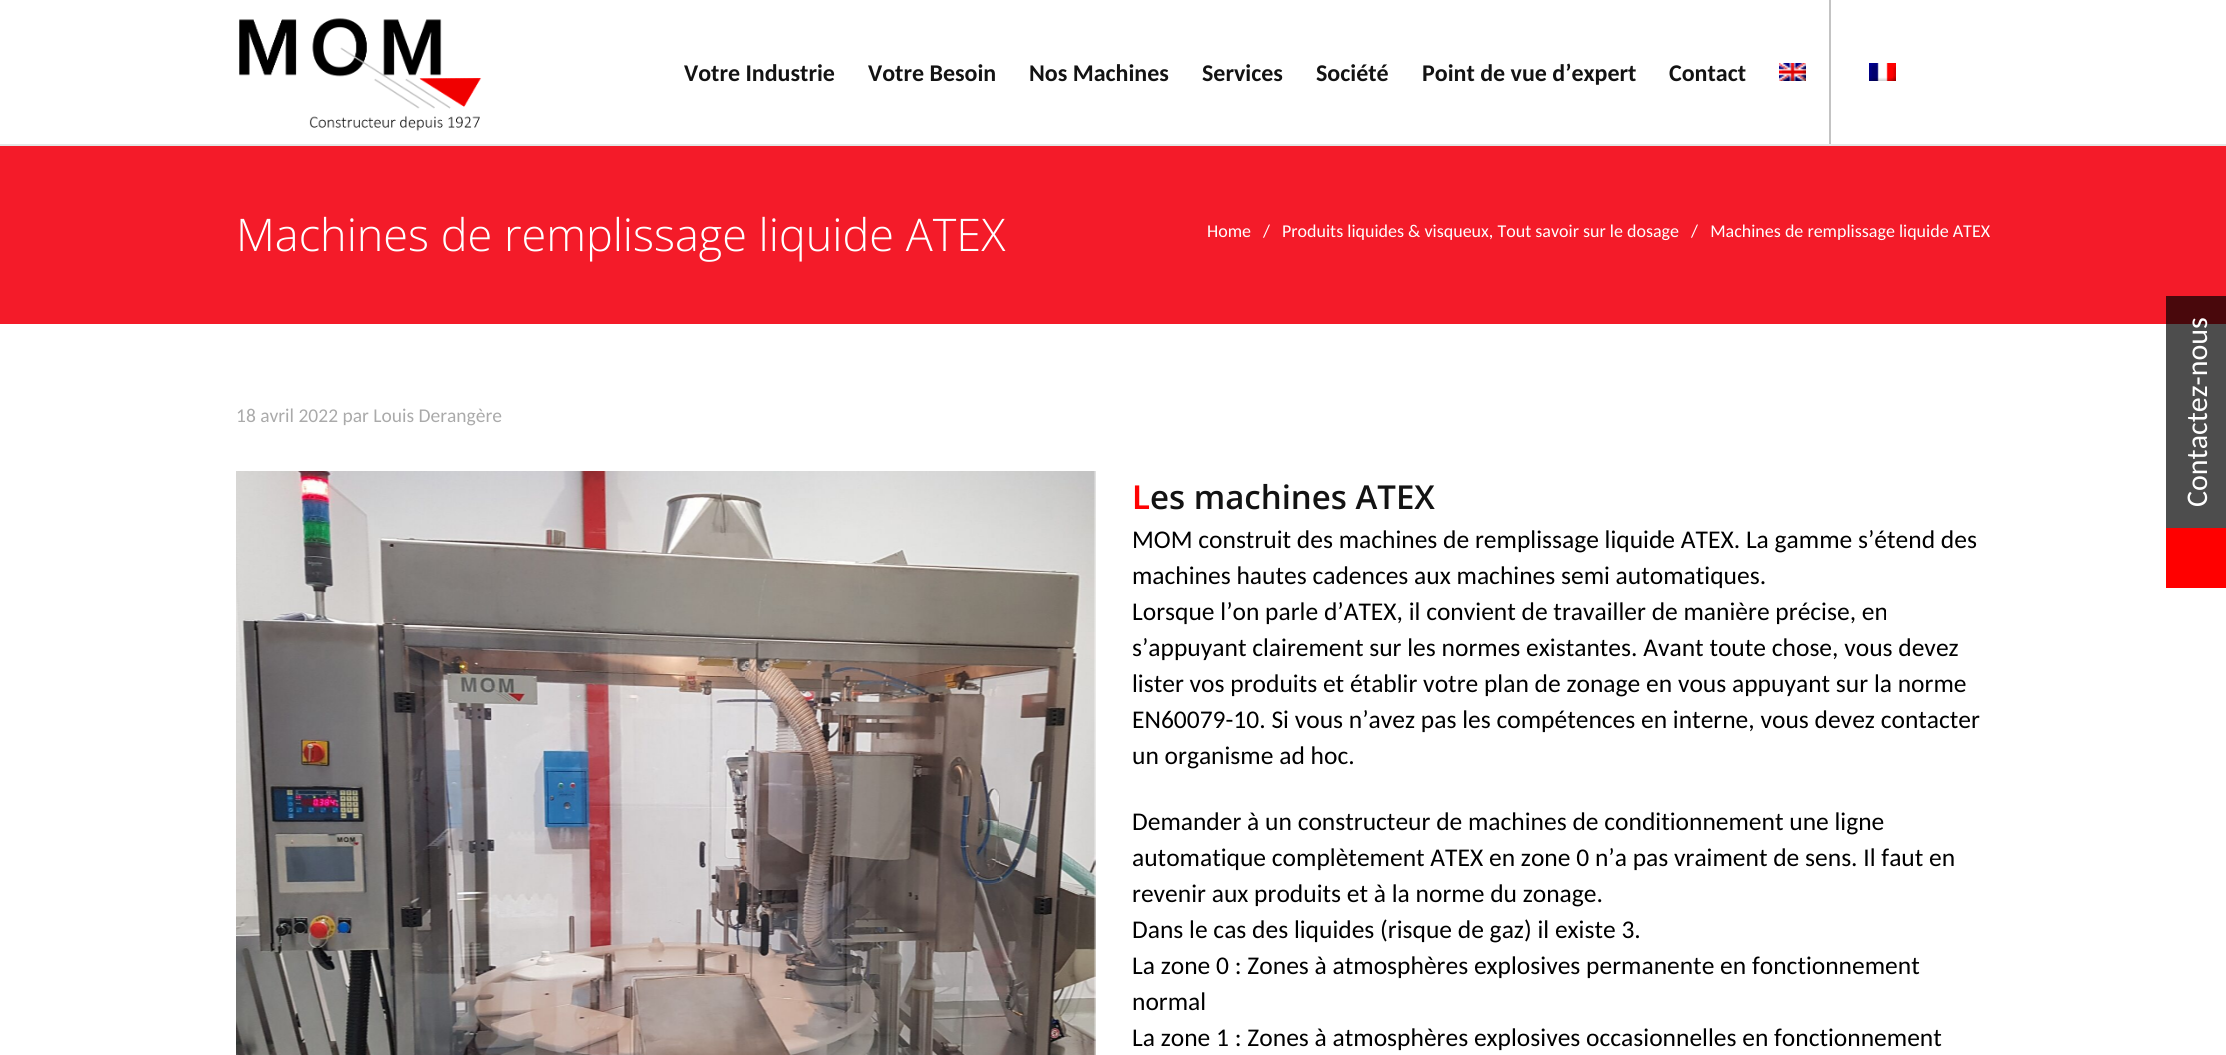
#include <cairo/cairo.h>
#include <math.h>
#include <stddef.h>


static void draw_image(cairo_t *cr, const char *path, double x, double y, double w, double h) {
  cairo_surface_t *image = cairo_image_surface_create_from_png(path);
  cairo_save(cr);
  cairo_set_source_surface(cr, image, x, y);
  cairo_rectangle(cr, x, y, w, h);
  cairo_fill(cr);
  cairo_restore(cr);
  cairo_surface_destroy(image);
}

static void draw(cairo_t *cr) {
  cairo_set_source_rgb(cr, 1, 1, 1);
  cairo_paint(cr);
  cairo_set_source_rgb(cr, 77 / 255.0, 77 / 255.0, 77 / 255.0);
  cairo_rectangle(cr, 2166, 324, 60, 204);
  cairo_fill(cr);
  cairo_set_source_rgb(cr, 229 / 255.0, 229 / 255.0, 229 / 255.0);
  cairo_rectangle(cr, 0, 144, 2226, 2);
  cairo_fill(cr);
  draw_image(cr, "images/1.png", 239, 18, 243, 113);
  draw_image(cr, "images/2.png", 1779, 63, 27, 18);
  cairo_set_source_rgb(cr, 195 / 255.0, 195 / 255.0, 195 / 255.0);
  cairo_rectangle(cr, 1829, 0, 2, 144);
  cairo_fill(cr);
  draw_image(cr, "images/3.png", 1869, 63, 27, 18);
  cairo_set_source_rgb(cr, 244 / 255.0, 27 / 255.0, 41 / 255.0);
  cairo_rectangle(cr, 0, 146, 2226, 178);
  cairo_fill(cr);
  cairo_set_source_rgb(cr, 73 / 255.0, 8 / 255.0, 12 / 255.0);
  cairo_rectangle(cr, 2166, 296, 60, 28);
  cairo_fill(cr);
  draw_image(cr, "images/4.png", 236, 471, 860, 584);
  cairo_set_source_rgb(cr, 1, 0, 0);
  cairo_rectangle(cr, 2166, 528, 60, 60);
  cairo_fill(cr);
  cairo_select_font_face(cr, "Carlito", CAIRO_FONT_SLANT_NORMAL, CAIRO_FONT_WEIGHT_BOLD);
  cairo_set_font_size(cr, 24);
  cairo_set_source_rgb(cr, 19 / 255.0, 19 / 255.0, 19 / 255.0);
  cairo_move_to(cr, 684, 81);
  cairo_show_text(cr, "Votre Industrie");
  cairo_move_to(cr, 868, 81);
  cairo_show_text(cr, "Votre Besoin");
  cairo_move_to(cr, 1029, 81);
  cairo_show_text(cr, "Nos Machines");
  cairo_move_to(cr, 1202, 81);
  cairo_show_text(cr, "Services");
  cairo_move_to(cr, 1316, 81);
  cairo_show_text(cr, "Société");
  cairo_move_to(cr, 1422, 81);
  cairo_show_text(cr, "Point de vue d’expert");
  cairo_move_to(cr, 1669, 81);
  cairo_show_text(cr, "Contact");
  cairo_select_font_face(cr, "Open Sans Light", CAIRO_FONT_SLANT_NORMAL, CAIRO_FONT_WEIGHT_NORMAL);
  cairo_set_font_size(cr, 45);
  cairo_set_source_rgb(cr, 1, 1, 1);
  cairo_move_to(cr, 236, 251);
  cairo_show_text(cr, "Machines de remplissage liquide ATEX");
  cairo_select_font_face(cr, "Carlito", CAIRO_FONT_SLANT_NORMAL, CAIRO_FONT_WEIGHT_NORMAL);
  cairo_set_font_size(cr, 18);
  cairo_move_to(cr, 1207, 237);
  cairo_show_text(cr, "Home");
  cairo_move_to(cr, 1263, 237);
  cairo_show_text(cr, "/");
  cairo_move_to(cr, 1282, 237);
  cairo_show_text(cr, "Produits liquides & visqueux, Tout savoir sur le dosage");
  cairo_move_to(cr, 1691, 237);
  cairo_show_text(cr, "/   Machines de remplissage liquide ATEX");
  cairo_set_font_size(cr, 19.5);
  cairo_set_source_rgb(cr, 170 / 255.0, 170 / 255.0, 170 / 255.0);
  cairo_move_to(cr, 236, 422);
  cairo_show_text(cr, "18 avril 2022 par Louis Derangère");
  cairo_select_font_face(cr, "Noto Sans SemiBold", CAIRO_FONT_SLANT_NORMAL, CAIRO_FONT_WEIGHT_NORMAL);
  cairo_set_font_size(cr, 33);
  cairo_set_source_rgb(cr, 1, 3 / 255.0, 3 / 255.0);
  cairo_move_to(cr, 1132, 509);
  cairo_show_text(cr, "L");
  cairo_select_font_face(cr, "Open Sans SemiBold", CAIRO_FONT_SLANT_NORMAL, CAIRO_FONT_WEIGHT_NORMAL);
  cairo_set_source_rgb(cr, 19 / 255.0, 19 / 255.0, 19 / 255.0);
  cairo_move_to(cr, 1150, 509);
  cairo_show_text(cr, "es machines ATEX");
  cairo_select_font_face(cr, "Carlito", CAIRO_FONT_SLANT_NORMAL, CAIRO_FONT_WEIGHT_NORMAL);
  cairo_set_font_size(cr, 25.5);
  cairo_set_source_rgb(cr, 0, 0, 0);
  cairo_move_to(cr, 1132, 548);
  cairo_show_text(cr, "MOM construit des machines de remplissage liquide ATEX. La gamme s’étend des");
  cairo_move_to(cr, 1132, 584);
  cairo_show_text(cr, "machines hautes cadences aux machines semi automatiques.");
  cairo_move_to(cr, 1132, 620);
  cairo_show_text(cr, "Lorsque l’on parle d’ATEX, il convient de travailler de manière précise, en");
  cairo_move_to(cr, 1132, 656);
  cairo_show_text(cr, "s’appuyant clairement sur les normes existantes. Avant toute chose, vous devez");
  cairo_move_to(cr, 1132, 692);
  cairo_show_text(cr, "lister vos produits et établir votre plan de zonage en vous appuyant sur la norme");
  cairo_move_to(cr, 1132, 728);
  cairo_show_text(cr, "EN60079-10. Si vous n’avez pas les compétences en interne, vous devez contacter");
  cairo_move_to(cr, 1132, 764);
  cairo_show_text(cr, "un organisme ad hoc.");
  cairo_move_to(cr, 1132, 830);
  cairo_show_text(cr, "Demander à un constructeur de machines de conditionnement une ligne");
  cairo_move_to(cr, 1132, 866);
  cairo_show_text(cr, "automatique complètement ATEX en zone 0 n’a pas vraiment de sens. Il faut en");
  cairo_move_to(cr, 1132, 902);
  cairo_show_text(cr, "revenir aux produits et à la norme du zonage.");
  cairo_move_to(cr, 1132, 938);
  cairo_show_text(cr, "Dans le cas des liquides (risque de gaz) il existe 3.");
  cairo_move_to(cr, 1132, 974);
  cairo_show_text(cr, "La zone 0 : Zones à atmosphères explosives permanente en fonctionnement");
  cairo_move_to(cr, 1132, 1010);
  cairo_show_text(cr, "normal");
  cairo_move_to(cr, 1132, 1046);
  cairo_show_text(cr, "La zone 1 : Zones à atmosphères explosives occasionnelles en fonctionnement");
  cairo_set_font_size(cr, 30);
  cairo_set_source_rgb(cr, 1, 1, 1);
  cairo_save(cr);
  cairo_translate(cr, 2207, 507);
  cairo_rotate(cr, -90 * M_PI / 180);
  cairo_move_to(cr, 0, 0);
  cairo_show_text(cr, "Contactez-nous");
  cairo_restore(cr);
}

int main(void) {
  cairo_surface_t *surface = cairo_image_surface_create(CAIRO_FORMAT_RGB24, 2226, 1055);
  cairo_t *cr = cairo_create(surface);
  cairo_font_options_t *options = cairo_font_options_create();
  cairo_font_options_set_hint_metrics(options, CAIRO_HINT_METRICS_OFF);
  cairo_font_options_set_hint_style(options, CAIRO_HINT_STYLE_NONE);
  cairo_set_font_options(cr, options);
  cairo_set_miter_limit(cr, 4);
  draw(cr);
  cairo_surface_write_to_png(surface, "out.png");
  cairo_font_options_destroy(options);
  cairo_destroy(cr);
  cairo_surface_destroy(surface);
  return 0;
}
